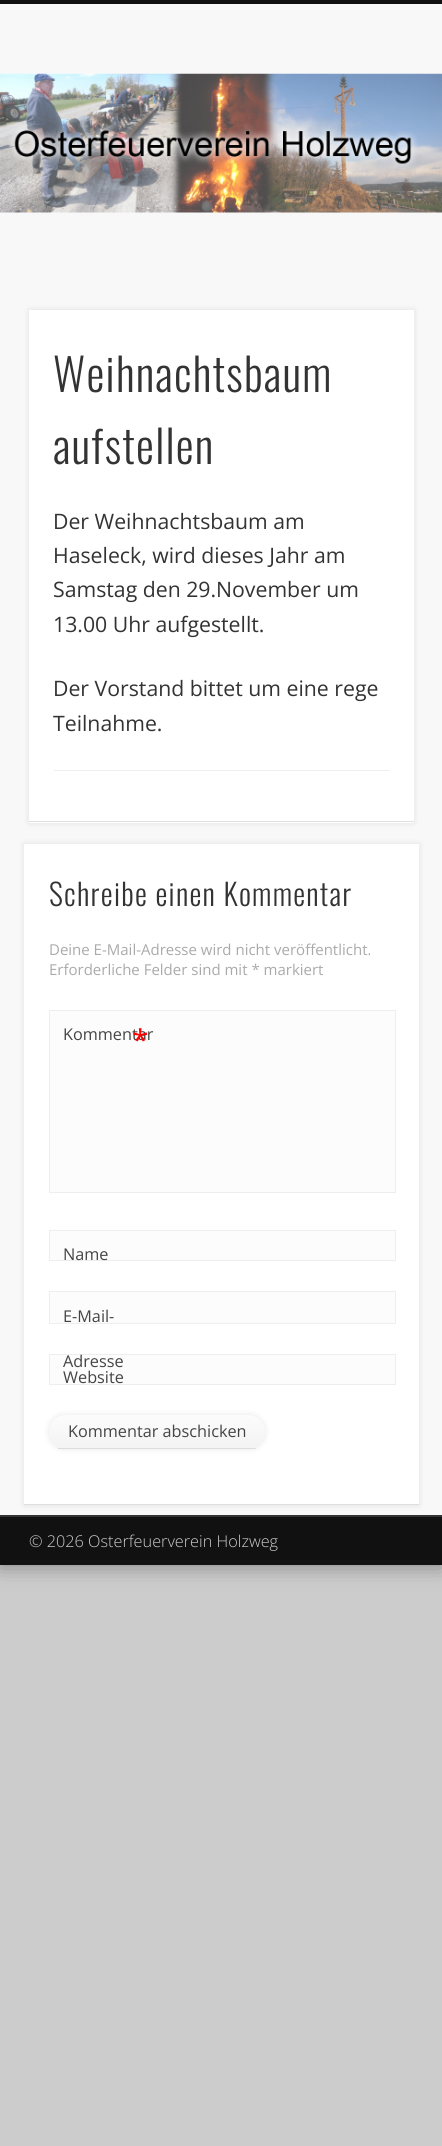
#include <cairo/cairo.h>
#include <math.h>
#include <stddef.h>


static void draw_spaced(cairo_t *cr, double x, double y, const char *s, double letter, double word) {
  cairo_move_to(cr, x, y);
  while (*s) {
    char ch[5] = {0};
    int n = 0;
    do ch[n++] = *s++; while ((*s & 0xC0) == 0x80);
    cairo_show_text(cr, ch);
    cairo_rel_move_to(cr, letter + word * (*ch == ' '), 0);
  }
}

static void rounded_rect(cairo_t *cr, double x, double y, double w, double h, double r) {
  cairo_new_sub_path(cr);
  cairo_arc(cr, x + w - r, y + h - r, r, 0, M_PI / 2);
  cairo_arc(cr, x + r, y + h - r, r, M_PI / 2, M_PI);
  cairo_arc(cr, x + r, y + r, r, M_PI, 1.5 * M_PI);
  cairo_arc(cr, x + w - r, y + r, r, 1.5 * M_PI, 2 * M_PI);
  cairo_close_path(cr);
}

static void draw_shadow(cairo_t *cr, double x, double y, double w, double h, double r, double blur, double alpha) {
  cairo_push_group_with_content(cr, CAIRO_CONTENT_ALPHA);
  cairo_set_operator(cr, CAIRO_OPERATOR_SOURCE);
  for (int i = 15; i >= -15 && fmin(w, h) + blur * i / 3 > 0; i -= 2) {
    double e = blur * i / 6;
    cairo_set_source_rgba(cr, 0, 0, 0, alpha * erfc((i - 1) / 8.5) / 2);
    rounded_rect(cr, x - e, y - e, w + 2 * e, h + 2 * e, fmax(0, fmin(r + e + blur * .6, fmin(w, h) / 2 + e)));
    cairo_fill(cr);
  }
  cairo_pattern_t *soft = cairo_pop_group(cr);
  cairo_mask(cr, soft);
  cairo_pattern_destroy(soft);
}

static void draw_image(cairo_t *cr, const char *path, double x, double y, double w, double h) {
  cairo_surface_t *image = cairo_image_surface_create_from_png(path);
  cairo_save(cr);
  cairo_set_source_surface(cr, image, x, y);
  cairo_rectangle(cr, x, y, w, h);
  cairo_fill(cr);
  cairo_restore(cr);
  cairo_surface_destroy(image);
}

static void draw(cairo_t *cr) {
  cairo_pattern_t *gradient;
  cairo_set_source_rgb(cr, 204 / 255.0, 204 / 255.0, 204 / 255.0);
  cairo_paint(cr);
  cairo_set_source_rgb(cr, 0, 0, 0);
  draw_shadow(cr, 0, 0, 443, 1565, 0, 11, 0.4);
  cairo_set_source_rgb(cr, 248 / 255.0, 248 / 255.0, 248 / 255.0);
  cairo_rectangle(cr, 0, 4, 442, 1511);
  cairo_fill(cr);
  cairo_set_source_rgb(cr, 17 / 255.0, 17 / 255.0, 17 / 255.0);
  cairo_rectangle(cr, 0, 0, 442, 4);
  cairo_fill(cr);
  draw_image(cr, "images/1.png", 0, 73, 442, 140);
  cairo_set_source_rgb(cr, 0, 0, 0);
  draw_shadow(cr, 29, 310, 385, 513, 0, 3, 0.1);
  cairo_set_source_rgb(cr, 1, 1, 1);
  cairo_rectangle(cr, 29, 310, 385, 513);
  cairo_fill(cr);
  cairo_set_source_rgb(cr, 222 / 255.0, 222 / 255.0, 222 / 255.0);
  cairo_rectangle(cr, 29, 821, 385, 1);
  cairo_fill(cr);
  cairo_set_source_rgb(cr, 238 / 255.0, 238 / 255.0, 238 / 255.0);
  cairo_rectangle(cr, 54, 770, 335, 1);
  cairo_fill(cr);
  cairo_set_source_rgb(cr, 0, 0, 0);
  draw_shadow(cr, 24, 844, 395, 661, 0, 3, 0.1);
  cairo_set_source_rgb(cr, 1, 1, 1);
  cairo_rectangle(cr, 24, 844, 395, 660);
  cairo_fill(cr);
  cairo_set_source_rgb(cr, 222 / 255.0, 222 / 255.0, 222 / 255.0);
  cairo_rectangle(cr, 24, 1504, 395, 1);
  cairo_fill(cr);
  cairo_set_source_rgb(cr, 252 / 255.0, 252 / 255.0, 252 / 255.0);
  cairo_rectangle(cr, 49.5, 1010.5, 346, 182);
  cairo_fill_preserve(cr);
  cairo_set_source_rgb(cr, 238 / 255.0, 238 / 255.0, 238 / 255.0);
  cairo_set_line_width(cr, 1);
  cairo_stroke(cr);
  cairo_set_source_rgb(cr, 252 / 255.0, 252 / 255.0, 252 / 255.0);
  cairo_rectangle(cr, 49.5, 1230.5, 346, 30);
  cairo_fill_preserve(cr);
  cairo_set_source_rgb(cr, 238 / 255.0, 238 / 255.0, 238 / 255.0);
  cairo_stroke(cr);
  cairo_set_source_rgb(cr, 252 / 255.0, 252 / 255.0, 252 / 255.0);
  cairo_rectangle(cr, 49.5, 1291.5, 346, 32);
  cairo_fill_preserve(cr);
  cairo_set_source_rgb(cr, 238 / 255.0, 238 / 255.0, 238 / 255.0);
  cairo_stroke(cr);
  cairo_set_source_rgb(cr, 252 / 255.0, 252 / 255.0, 252 / 255.0);
  cairo_rectangle(cr, 49.5, 1354.5, 346, 30);
  cairo_fill_preserve(cr);
  cairo_set_source_rgb(cr, 238 / 255.0, 238 / 255.0, 238 / 255.0);
  cairo_stroke(cr);
  cairo_set_source_rgb(cr, 0, 0, 0);
  draw_shadow(cr, 49, 1415, 216, 34, 17, 3, 0.1);
  cairo_save(cr);
  rounded_rect(cr, 49, 1415, 216, 34, 17);
  cairo_clip(cr);
  gradient = cairo_pattern_create_linear(157, 1415, 157, 1448);
  cairo_pattern_add_color_stop_rgba(gradient, 0, 252 / 255.0, 252 / 255.0, 252 / 255.0, 1);
  cairo_pattern_add_color_stop_rgba(gradient, 1, 243 / 255.0, 243 / 255.0, 243 / 255.0, 1);
  cairo_set_source(cr, gradient);
  cairo_pattern_destroy(gradient);
  cairo_new_path(cr);
  cairo_move_to(cr, 66, 1415);
  cairo_line_to(cr, 248, 1415);
  cairo_curve_to(cr, 257.5, 1415, 265, 1422.5, 265, 1432);
  cairo_line_to(cr, 265, 1448);
  cairo_line_to(cr, 49, 1448);
  cairo_line_to(cr, 49, 1432);
  cairo_curve_to(cr, 49, 1422.5, 56.5, 1415, 66, 1415);
  cairo_close_path(cr);
  cairo_fill(cr);
  cairo_restore(cr);
  cairo_set_source_rgb(cr, 221 / 255.0, 221 / 255.0, 221 / 255.0);
  cairo_rectangle(cr, 58, 1448, 198, 1);
  cairo_fill(cr);
  cairo_set_source_rgb(cr, 52 / 255.0, 52 / 255.0, 52 / 255.0);
  cairo_rectangle(cr, 0, 1515, 442, 2);
  cairo_fill(cr);
  cairo_set_source_rgb(cr, 17 / 255.0, 17 / 255.0, 17 / 255.0);
  cairo_rectangle(cr, 0, 1517, 442, 48);
  cairo_fill(cr);
  cairo_select_font_face(cr, "Oswald Light", CAIRO_FONT_SLANT_NORMAL, CAIRO_FONT_WEIGHT_NORMAL);
  cairo_set_font_size(cr, 45);
  cairo_set_source_rgb(cr, 51 / 255.0, 51 / 255.0, 51 / 255.0);
  draw_spaced(cr, 53, 392, "Weihnachtsbaum", 1.25, 0);
  draw_spaced(cr, 53, 464, "aufstellen", 1.25, 0);
  cairo_select_font_face(cr, "Open Sans", CAIRO_FONT_SLANT_NORMAL, CAIRO_FONT_WEIGHT_NORMAL);
  cairo_set_font_size(cr, 21.25);
  cairo_move_to(cr, 53, 529);
  cairo_show_text(cr, "Der Weihnachtsbaum am");
  cairo_move_to(cr, 53, 563);
  cairo_show_text(cr, "Haseleck, wird dieses Jahr am");
  cairo_move_to(cr, 53, 597);
  cairo_show_text(cr, "Samstag den 29.November um");
  cairo_move_to(cr, 53, 632);
  cairo_show_text(cr, "13.00 Uhr aufgestellt.");
  cairo_move_to(cr, 53, 696);
  cairo_show_text(cr, "Der Vorstand bittet um eine rege");
  cairo_move_to(cr, 53, 731);
  cairo_show_text(cr, "Teilnahme.");
  cairo_select_font_face(cr, "Oswald Light", CAIRO_FONT_SLANT_NORMAL, CAIRO_FONT_WEIGHT_NORMAL);
  cairo_set_font_size(cr, 30);
  draw_spaced(cr, 49, 906, "Schreibe einen Kommentar", 1.25, 0);
  cairo_select_font_face(cr, "Open Sans", CAIRO_FONT_SLANT_NORMAL, CAIRO_FONT_WEIGHT_NORMAL);
  cairo_set_font_size(cr, 15);
  cairo_set_source_rgb(cr, 170 / 255.0, 170 / 255.0, 170 / 255.0);
  cairo_move_to(cr, 49, 955);
  cairo_show_text(cr, "Deine E-Mail-Adresse wird nicht veröffentlicht.");
  cairo_move_to(cr, 49, 975);
  cairo_show_text(cr, "Erforderliche Felder sind mit * markiert");
  cairo_set_font_size(cr, 16.25);
  cairo_set_source_rgb(cr, 68 / 255.0, 68 / 255.0, 68 / 255.0);
  cairo_move_to(cr, 63, 1040);
  cairo_show_text(cr, "Kommentar");
  cairo_set_font_size(cr, 30);
  cairo_set_source_rgb(cr, 1, 0, 0);
  cairo_move_to(cr, 132, 1051);
  cairo_show_text(cr, "*");
  cairo_set_font_size(cr, 16.25);
  cairo_set_source_rgb(cr, 68 / 255.0, 68 / 255.0, 68 / 255.0);
  cairo_move_to(cr, 63, 1260);
  cairo_show_text(cr, "Name");
  cairo_move_to(cr, 63, 1322);
  cairo_show_text(cr, "E-Mail-");
  cairo_move_to(cr, 63, 1367);
  cairo_show_text(cr, "Adresse");
  cairo_move_to(cr, 63, 1383);
  cairo_show_text(cr, "Website");
  cairo_move_to(cr, 68, 1437);
  cairo_show_text(cr, "Kommentar abschicken");
  cairo_select_font_face(cr, "Open Sans Light", CAIRO_FONT_SLANT_NORMAL, CAIRO_FONT_WEIGHT_NORMAL);
  cairo_set_source_rgb(cr, 204 / 255.0, 204 / 255.0, 204 / 255.0);
  cairo_move_to(cr, 29, 1547);
  cairo_show_text(cr, "© 2026 Osterfeuerverein Holzweg");
}

int main(void) {
  cairo_surface_t *surface = cairo_image_surface_create(CAIRO_FORMAT_RGB24, 442, 2146);
  cairo_t *cr = cairo_create(surface);
  cairo_font_options_t *options = cairo_font_options_create();
  cairo_font_options_set_hint_metrics(options, CAIRO_HINT_METRICS_OFF);
  cairo_font_options_set_hint_style(options, CAIRO_HINT_STYLE_NONE);
  cairo_set_font_options(cr, options);
  cairo_set_miter_limit(cr, 4);
  draw(cr);
  cairo_surface_write_to_png(surface, "out.png");
  cairo_font_options_destroy(options);
  cairo_destroy(cr);
  cairo_surface_destroy(surface);
  return 0;
}
